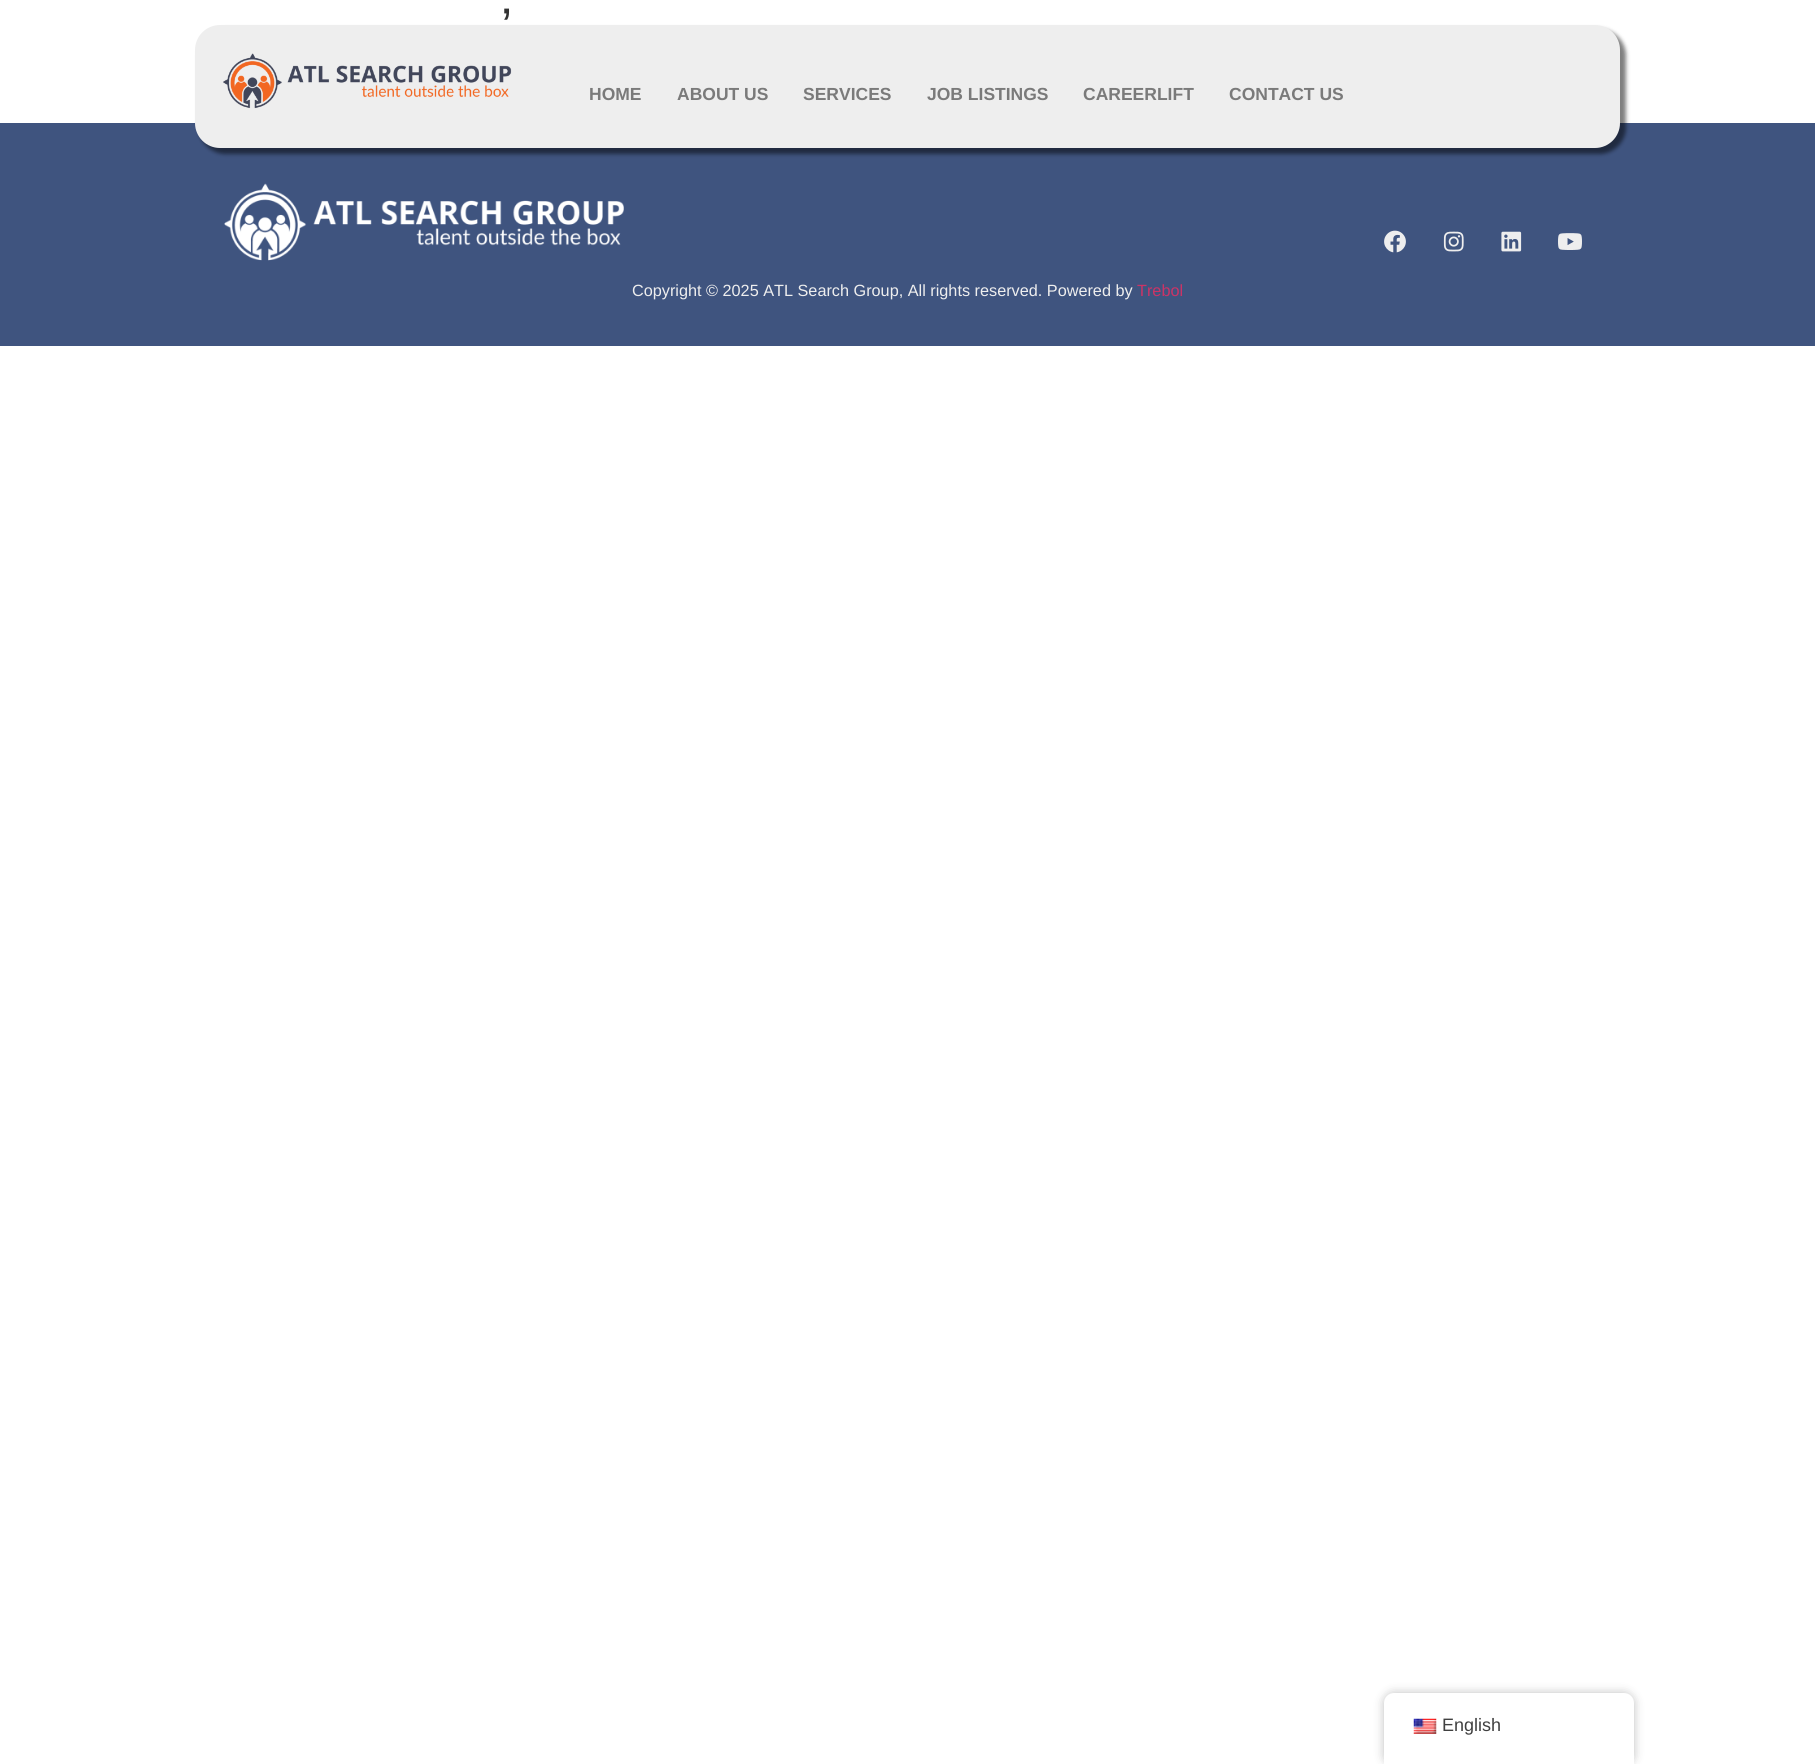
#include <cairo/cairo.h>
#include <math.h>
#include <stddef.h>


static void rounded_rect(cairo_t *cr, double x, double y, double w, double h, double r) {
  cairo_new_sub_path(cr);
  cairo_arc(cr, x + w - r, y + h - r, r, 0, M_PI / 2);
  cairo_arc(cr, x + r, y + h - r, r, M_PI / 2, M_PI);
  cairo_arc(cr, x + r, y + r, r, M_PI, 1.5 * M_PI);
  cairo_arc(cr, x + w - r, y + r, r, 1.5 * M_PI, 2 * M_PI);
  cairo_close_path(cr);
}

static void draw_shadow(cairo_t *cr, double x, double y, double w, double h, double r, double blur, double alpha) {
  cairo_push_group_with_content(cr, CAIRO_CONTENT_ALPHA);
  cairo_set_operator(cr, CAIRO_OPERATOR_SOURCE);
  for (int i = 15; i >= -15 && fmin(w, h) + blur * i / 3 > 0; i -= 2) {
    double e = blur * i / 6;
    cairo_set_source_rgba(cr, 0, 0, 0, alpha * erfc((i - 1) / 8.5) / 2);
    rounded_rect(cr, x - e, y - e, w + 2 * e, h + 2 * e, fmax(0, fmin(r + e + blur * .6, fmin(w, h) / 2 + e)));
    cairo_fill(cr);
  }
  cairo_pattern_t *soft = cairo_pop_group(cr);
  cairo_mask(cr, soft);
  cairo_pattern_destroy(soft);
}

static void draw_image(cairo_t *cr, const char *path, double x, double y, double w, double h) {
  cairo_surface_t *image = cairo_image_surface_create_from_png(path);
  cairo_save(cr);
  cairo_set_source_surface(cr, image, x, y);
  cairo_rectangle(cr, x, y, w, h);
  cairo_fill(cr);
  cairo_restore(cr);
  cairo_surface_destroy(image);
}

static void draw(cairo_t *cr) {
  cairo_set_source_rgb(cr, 1, 1, 1);
  cairo_paint(cr);
  cairo_set_source_rgb(cr, 63 / 255.0, 84 / 255.0, 127 / 255.0);
  cairo_rectangle(cr, 0, 123, 1815, 223);
  cairo_fill(cr);
  cairo_set_source_rgb(cr, 0, 0, 0);
  draw_shadow(cr, 199, 29, 1427, 125, 26, 2, 0.5);
  cairo_set_source_rgb(cr, 238 / 255.0, 238 / 255.0, 238 / 255.0);
  rounded_rect(cr, 195, 25, 1425, 123, 25);
  cairo_fill(cr);
  draw_image(cr, "images/1.png", 223, 53, 289, 56);
  draw_image(cr, "images/2.png", 224, 183, 400, 78);
  draw_image(cr, "images/3.png", 1384, 230, 22, 23);
  draw_image(cr, "images/4.png", 1443, 231, 21, 21);
  draw_image(cr, "images/5.png", 1501, 231, 21, 21);
  draw_image(cr, "images/6.png", 1558, 233, 24, 17);
  cairo_set_source_rgb(cr, 0, 0, 0);
  draw_shadow(cr, 1384, 1693, 250, 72, 10, 5, 0.25);
  cairo_set_source_rgb(cr, 1, 1, 1);
  cairo_new_path(cr);
  cairo_move_to(cr, 1394, 1693);
  cairo_line_to(cr, 1624, 1693);
  cairo_curve_to(cr, 1629.5, 1693, 1634, 1697.5, 1634, 1703);
  cairo_line_to(cr, 1634, 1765);
  cairo_line_to(cr, 1384, 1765);
  cairo_line_to(cr, 1384, 1703);
  cairo_curve_to(cr, 1384, 1697.5, 1388.5, 1693, 1394, 1693);
  cairo_close_path(cr);
  cairo_fill(cr);
  draw_image(cr, "images/7.png", 1413, 1718, 24, 16);
  cairo_select_font_face(cr, "Liberation Sans", CAIRO_FONT_SLANT_NORMAL, CAIRO_FONT_WEIGHT_NORMAL);
  cairo_set_font_size(cr, 50);
  cairo_set_source_rgb(cr, 51 / 255.0, 51 / 255.0, 51 / 255.0);
  cairo_move_to(cr, 501, 43);
  cairo_show_text(cr, "’");
  cairo_select_font_face(cr, "Liberation Sans", CAIRO_FONT_SLANT_NORMAL, CAIRO_FONT_WEIGHT_BOLD);
  cairo_set_font_size(cr, 17.5);
  cairo_set_source_rgb(cr, 122 / 255.0, 122 / 255.0, 122 / 255.0);
  cairo_move_to(cr, 589, 100);
  cairo_show_text(cr, "HOME");
  cairo_move_to(cr, 677, 100);
  cairo_show_text(cr, "ABOUT US");
  cairo_move_to(cr, 803, 100);
  cairo_show_text(cr, "SERVICES");
  cairo_move_to(cr, 927, 100);
  cairo_show_text(cr, "JOB LISTINGS");
  cairo_move_to(cr, 1083, 100);
  cairo_show_text(cr, "CAREERLIFT");
  cairo_move_to(cr, 1229, 100);
  cairo_show_text(cr, "CONTACT US");
  cairo_select_font_face(cr, "Liberation Sans", CAIRO_FONT_SLANT_NORMAL, CAIRO_FONT_WEIGHT_NORMAL);
  cairo_set_font_size(cr, 16.25);
  cairo_set_source_rgb(cr, 238 / 255.0, 238 / 255.0, 238 / 255.0);
  cairo_move_to(cr, 632, 296);
  cairo_show_text(cr, "Copyright © 2025 ATL Search Group, All rights reserved. Powered by");
  cairo_set_source_rgb(cr, 204 / 255.0, 51 / 255.0, 102 / 255.0);
  cairo_move_to(cr, 1137, 296);
  cairo_show_text(cr, "Trebol");
  cairo_set_font_size(cr, 18);
  cairo_set_source_rgb(cr, 64 / 255.0, 64 / 255.0, 64 / 255.0);
  cairo_move_to(cr, 1442, 1731);
  cairo_show_text(cr, "English");
}

int main(void) {
  cairo_surface_t *surface = cairo_image_surface_create(CAIRO_FORMAT_RGB24, 1815, 1764);
  cairo_t *cr = cairo_create(surface);
  cairo_font_options_t *options = cairo_font_options_create();
  cairo_font_options_set_hint_metrics(options, CAIRO_HINT_METRICS_OFF);
  cairo_font_options_set_hint_style(options, CAIRO_HINT_STYLE_NONE);
  cairo_set_font_options(cr, options);
  cairo_set_miter_limit(cr, 4);
  draw(cr);
  cairo_surface_write_to_png(surface, "out.png");
  cairo_font_options_destroy(options);
  cairo_destroy(cr);
  cairo_surface_destroy(surface);
  return 0;
}
